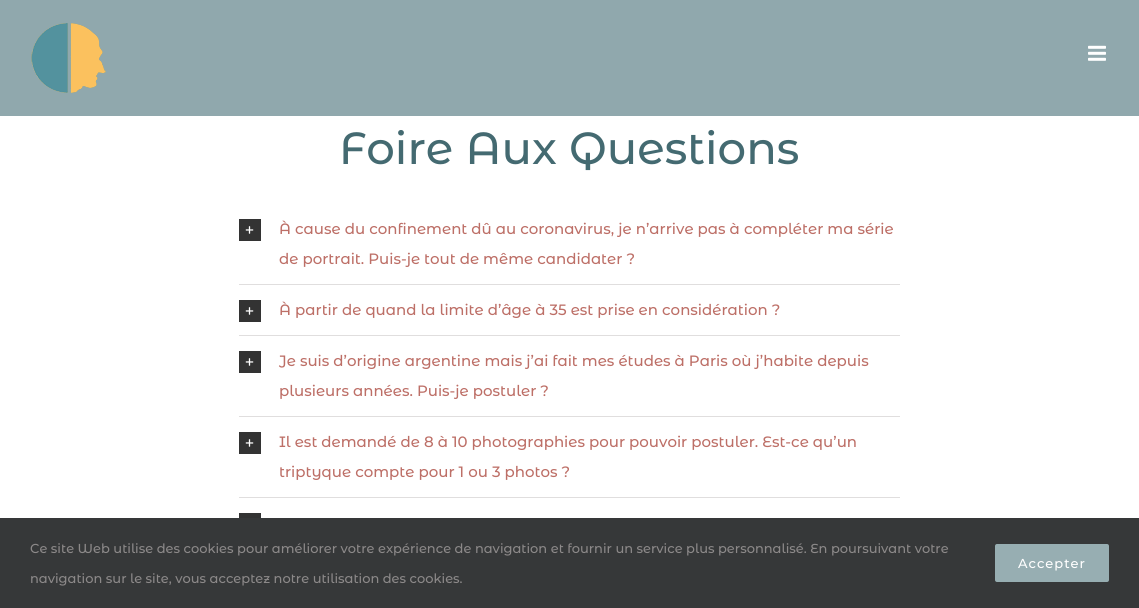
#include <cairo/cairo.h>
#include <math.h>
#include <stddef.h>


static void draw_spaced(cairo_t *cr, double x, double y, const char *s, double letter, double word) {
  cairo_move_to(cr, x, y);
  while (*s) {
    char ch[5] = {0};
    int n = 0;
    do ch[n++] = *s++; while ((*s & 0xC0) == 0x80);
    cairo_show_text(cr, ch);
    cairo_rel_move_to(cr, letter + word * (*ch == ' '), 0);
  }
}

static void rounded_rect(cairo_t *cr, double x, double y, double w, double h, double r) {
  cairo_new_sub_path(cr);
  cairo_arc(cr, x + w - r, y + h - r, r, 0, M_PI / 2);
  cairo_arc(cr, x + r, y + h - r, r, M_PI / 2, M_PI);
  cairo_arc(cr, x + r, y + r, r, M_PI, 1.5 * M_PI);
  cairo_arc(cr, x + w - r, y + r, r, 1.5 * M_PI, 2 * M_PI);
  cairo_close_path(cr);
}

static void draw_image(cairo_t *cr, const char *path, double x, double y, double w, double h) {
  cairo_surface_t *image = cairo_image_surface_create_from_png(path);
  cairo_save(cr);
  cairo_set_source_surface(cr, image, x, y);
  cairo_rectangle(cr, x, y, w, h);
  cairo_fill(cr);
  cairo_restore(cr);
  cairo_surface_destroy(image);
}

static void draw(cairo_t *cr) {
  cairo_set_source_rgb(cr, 1, 1, 1);
  cairo_paint(cr);
  cairo_set_source_rgb(cr, 144 / 255.0, 168 / 255.0, 173 / 255.0);
  cairo_rectangle(cr, 0, 0, 1139, 116);
  cairo_fill(cr);
  draw_image(cr, "images/1.png", 31, 23, 75, 70);
  draw_image(cr, "images/2.png", 1088, 45, 18, 16);
  cairo_set_source_rgb(cr, 224 / 255.0, 222 / 255.0, 222 / 255.0);
  cairo_rectangle(cr, 239, 284, 661, 1);
  cairo_fill(cr);
  cairo_set_source_rgb(cr, 51 / 255.0, 51 / 255.0, 51 / 255.0);
  cairo_rectangle(cr, 239, 219, 22, 22);
  cairo_fill(cr);
  draw_image(cr, "images/3.png", 245, 226, 9, 8);
  cairo_set_source_rgb(cr, 224 / 255.0, 222 / 255.0, 222 / 255.0);
  cairo_rectangle(cr, 239, 335, 661, 1);
  cairo_fill(cr);
  cairo_set_source_rgb(cr, 51 / 255.0, 51 / 255.0, 51 / 255.0);
  cairo_rectangle(cr, 239, 300, 22, 22);
  cairo_fill(cr);
  draw_image(cr, "images/3.png", 245, 307, 9, 8);
  cairo_set_source_rgb(cr, 224 / 255.0, 222 / 255.0, 222 / 255.0);
  cairo_rectangle(cr, 239, 416, 661, 1);
  cairo_fill(cr);
  cairo_set_source_rgb(cr, 51 / 255.0, 51 / 255.0, 51 / 255.0);
  cairo_rectangle(cr, 239, 351, 22, 22);
  cairo_fill(cr);
  draw_image(cr, "images/3.png", 245, 358, 9, 8);
  cairo_set_source_rgb(cr, 224 / 255.0, 222 / 255.0, 222 / 255.0);
  cairo_rectangle(cr, 239, 497, 661, 1);
  cairo_fill(cr);
  cairo_set_source_rgb(cr, 51 / 255.0, 51 / 255.0, 51 / 255.0);
  cairo_rectangle(cr, 239, 432, 22, 22);
  cairo_fill(cr);
  draw_image(cr, "images/3.png", 245, 439, 9, 8);
  cairo_rectangle(cr, 239, 513, 22, 5);
  cairo_fill(cr);
  cairo_set_source_rgb(cr, 54 / 255.0, 56 / 255.0, 57 / 255.0);
  cairo_rectangle(cr, 0, 518, 1139, 90);
  cairo_fill(cr);
  cairo_set_source_rgb(cr, 151 / 255.0, 174 / 255.0, 178 / 255.0);
  rounded_rect(cr, 995, 544, 114, 38, 2);
  cairo_fill(cr);
  cairo_select_font_face(cr, "Montserrat Alternates Medium", CAIRO_FONT_SLANT_NORMAL, CAIRO_FONT_WEIGHT_NORMAL);
  cairo_set_font_size(cr, 45);
  cairo_set_source_rgb(cr, 68 / 255.0, 106 / 255.0, 113 / 255.0);
  cairo_move_to(cr, 339, 164);
  cairo_show_text(cr, "Foire Aux Questions");
  cairo_set_font_size(cr, 15);
  cairo_set_source_rgb(cr, 189 / 255.0, 111 / 255.0, 103 / 255.0);
  cairo_move_to(cr, 279, 234);
  cairo_show_text(cr, "À cause du confinement dû au coronavirus, je n’arrive pas à compléter ma série");
  cairo_move_to(cr, 279, 264);
  cairo_show_text(cr, "de portrait. Puis-je tout de même candidater ?");
  cairo_move_to(cr, 279, 315);
  cairo_show_text(cr, "À partir de quand la limite d’âge à 35 est prise en considération ?");
  cairo_move_to(cr, 279, 366);
  cairo_show_text(cr, "Je suis d’origine argentine mais j’ai fait mes études à Paris où j’habite depuis");
  cairo_move_to(cr, 279, 396);
  cairo_show_text(cr, "plusieurs années. Puis-je postuler ?");
  cairo_move_to(cr, 279, 447);
  cairo_show_text(cr, "Il est demandé de 8 à 10 photographies pour pouvoir postuler. Est-ce qu’un");
  cairo_move_to(cr, 279, 477);
  cairo_show_text(cr, "triptyque compte pour 1 ou 3 photos ?");
  cairo_set_font_size(cr, 13);
  cairo_set_source_rgb(cr, 140 / 255.0, 137 / 255.0, 137 / 255.0);
  cairo_move_to(cr, 30, 553);
  cairo_show_text(cr, "Ce site Web utilise des cookies pour améliorer votre expérience de navigation et fournir un service plus personnalisé. En poursuivant votre");
  cairo_move_to(cr, 30, 583);
  cairo_show_text(cr, "navigation sur le site, vous acceptez notre utilisation des cookies.");
  cairo_select_font_face(cr, "Montserrat Medium", CAIRO_FONT_SLANT_NORMAL, CAIRO_FONT_WEIGHT_NORMAL);
  cairo_set_source_rgb(cr, 1, 1, 1);
  draw_spaced(cr, 1018, 568, "Accepter", 1, 0);
}

int main(void) {
  cairo_surface_t *surface = cairo_image_surface_create(CAIRO_FORMAT_RGB24, 1139, 608);
  cairo_t *cr = cairo_create(surface);
  cairo_font_options_t *options = cairo_font_options_create();
  cairo_font_options_set_hint_metrics(options, CAIRO_HINT_METRICS_OFF);
  cairo_font_options_set_hint_style(options, CAIRO_HINT_STYLE_NONE);
  cairo_set_font_options(cr, options);
  cairo_set_miter_limit(cr, 4);
  draw(cr);
  cairo_surface_write_to_png(surface, "out.png");
  cairo_font_options_destroy(options);
  cairo_destroy(cr);
  cairo_surface_destroy(surface);
  return 0;
}
